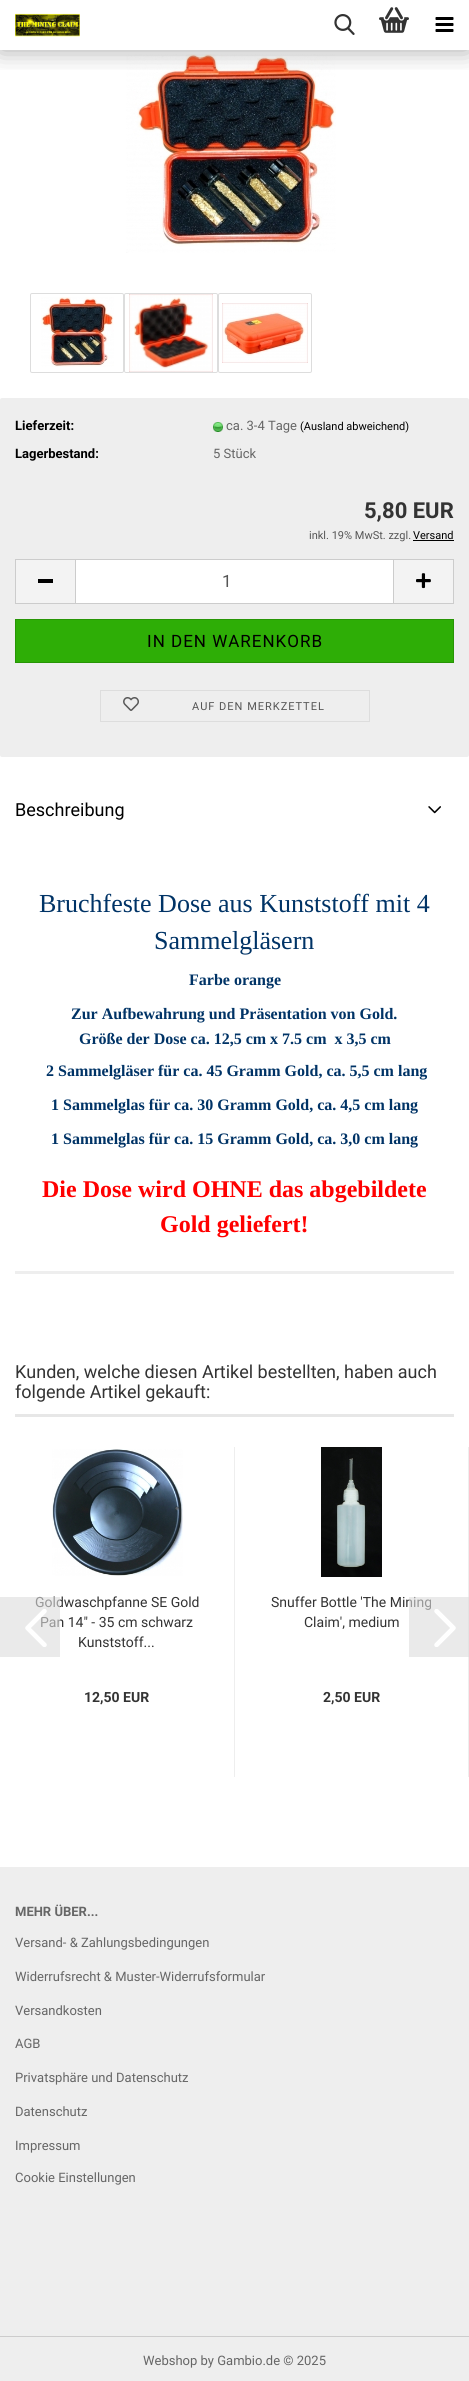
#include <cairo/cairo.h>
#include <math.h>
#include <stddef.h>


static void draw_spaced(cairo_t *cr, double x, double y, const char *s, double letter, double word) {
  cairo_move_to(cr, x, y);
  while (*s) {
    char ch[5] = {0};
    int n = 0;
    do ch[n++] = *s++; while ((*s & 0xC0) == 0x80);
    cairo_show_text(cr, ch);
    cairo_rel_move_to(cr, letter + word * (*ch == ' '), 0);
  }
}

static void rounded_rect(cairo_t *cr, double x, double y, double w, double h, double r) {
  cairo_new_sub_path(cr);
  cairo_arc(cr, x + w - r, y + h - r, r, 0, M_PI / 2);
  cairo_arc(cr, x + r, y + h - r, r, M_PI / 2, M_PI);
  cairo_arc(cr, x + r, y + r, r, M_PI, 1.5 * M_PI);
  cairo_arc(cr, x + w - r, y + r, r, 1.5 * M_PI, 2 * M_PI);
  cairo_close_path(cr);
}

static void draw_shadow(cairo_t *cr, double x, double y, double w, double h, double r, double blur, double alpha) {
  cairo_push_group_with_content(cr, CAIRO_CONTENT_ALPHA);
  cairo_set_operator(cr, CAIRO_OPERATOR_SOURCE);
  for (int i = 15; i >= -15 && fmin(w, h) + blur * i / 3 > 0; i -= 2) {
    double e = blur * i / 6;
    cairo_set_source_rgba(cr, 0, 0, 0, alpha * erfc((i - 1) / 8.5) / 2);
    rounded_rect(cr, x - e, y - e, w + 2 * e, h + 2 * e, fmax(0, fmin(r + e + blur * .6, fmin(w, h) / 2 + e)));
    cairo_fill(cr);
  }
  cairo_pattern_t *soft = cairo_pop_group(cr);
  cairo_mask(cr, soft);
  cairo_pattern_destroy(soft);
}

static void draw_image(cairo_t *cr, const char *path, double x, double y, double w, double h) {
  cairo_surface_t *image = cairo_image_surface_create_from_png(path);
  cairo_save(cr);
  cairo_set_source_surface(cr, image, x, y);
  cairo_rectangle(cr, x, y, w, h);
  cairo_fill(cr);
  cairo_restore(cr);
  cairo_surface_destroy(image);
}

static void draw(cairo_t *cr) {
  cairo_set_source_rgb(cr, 1, 1, 1);
  cairo_paint(cr);
  draw_image(cr, "images/5.png", 126, 54, 210, 199);
  cairo_save(cr);
  cairo_rectangle(cr, 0, 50, 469, 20);
  cairo_clip(cr);
  cairo_set_source_rgb(cr, 0, 0, 0);
  draw_shadow(cr, 0, 0, 469, 50, 0, 12.5, 0.35);
  cairo_restore(cr);
  draw_image(cr, "images/1.png", 15, 13, 65, 24);
  draw_image(cr, "images/2.png", 334, 14, 21, 21);
  draw_image(cr, "images/3.png", 379, 7, 30, 26);
  draw_image(cr, "images/4.png", 435, 17, 19, 15);
  rounded_rect(cr, 30.5, 293.5, 93, 79, 1.5);
  cairo_set_source_rgb(cr, 221 / 255.0, 221 / 255.0, 221 / 255.0);
  cairo_set_line_width(cr, 1);
  cairo_stroke(cr);
  draw_image(cr, "images/6.png", 41, 297, 73, 70);
  rounded_rect(cr, 124.5, 293.5, 93, 79, 1.5);
  cairo_stroke(cr);
  draw_image(cr, "images/7.png", 129, 294, 84, 78);
  rounded_rect(cr, 218.5, 293.5, 93, 79, 1.5);
  cairo_stroke(cr);
  draw_image(cr, "images/8.png", 222, 303, 86, 60);
  cairo_set_source_rgb(cr, 238 / 255.0, 238 / 255.0, 238 / 255.0);
  rounded_rect(cr, 0, 398, 469, 359, 2);
  cairo_fill(cr);
  draw_image(cr, "images/9.png", 213, 422, 10, 10);
  cairo_set_source_rgb(cr, 0, 0, 0);
  cairo_rectangle(cr, 413, 540, 41, 1);
  cairo_fill(cr);
  cairo_set_source_rgb(cr, 243 / 255.0, 243 / 255.0, 243 / 255.0);
  cairo_rectangle(cr, 16, 560, 59, 43);
  cairo_fill(cr);
  cairo_set_source_rgb(cr, 204 / 255.0, 204 / 255.0, 204 / 255.0);
  cairo_rectangle(cr, 15, 559, 60, 1);
  cairo_fill(cr);
  cairo_rectangle(cr, 15, 603, 60, 1);
  cairo_fill(cr);
  cairo_rectangle(cr, 15, 559, 1, 45);
  cairo_fill(cr);
  cairo_set_source_rgb(cr, 0, 0, 0);
  cairo_rectangle(cr, 38, 579, 15, 4);
  cairo_fill(cr);
  cairo_set_source_rgb(cr, 1, 1, 1);
  cairo_rectangle(cr, 75.5, 559.5, 318, 44);
  cairo_fill_preserve(cr);
  cairo_set_source_rgb(cr, 204 / 255.0, 204 / 255.0, 204 / 255.0);
  cairo_stroke(cr);
  cairo_set_source_rgb(cr, 243 / 255.0, 243 / 255.0, 243 / 255.0);
  cairo_rectangle(cr, 394, 560, 59, 43);
  cairo_fill(cr);
  cairo_set_source_rgb(cr, 204 / 255.0, 204 / 255.0, 204 / 255.0);
  cairo_rectangle(cr, 394, 559, 60, 1);
  cairo_fill(cr);
  cairo_rectangle(cr, 453, 559, 1, 45);
  cairo_fill(cr);
  cairo_rectangle(cr, 394, 603, 60, 1);
  cairo_fill(cr);
  draw_image(cr, "images/10.png", 416, 573, 15, 16);
  cairo_set_source_rgb(cr, 46 / 255.0, 174 / 255.0, 6 / 255.0);
  cairo_rectangle(cr, 15.5, 619.5, 438, 43);
  cairo_fill_preserve(cr);
  cairo_set_source_rgb(cr, 39 / 255.0, 149 / 255.0, 5 / 255.0);
  cairo_stroke(cr);
  cairo_rectangle(cr, 100.5, 690.5, 269, 31);
  cairo_set_source_rgb(cr, 221 / 255.0, 221 / 255.0, 221 / 255.0);
  cairo_stroke(cr);
  draw_image(cr, "images/11.png", 123, 697, 16, 14);
  draw_image(cr, "images/12.png", 428, 806, 13, 8);
  cairo_set_source_rgb(cr, 238 / 255.0, 238 / 255.0, 238 / 255.0);
  cairo_rectangle(cr, 15, 1271, 439, 3);
  cairo_fill(cr);
  cairo_set_source_rgb(cr, 231 / 255.0, 231 / 255.0, 231 / 255.0);
  cairo_rectangle(cr, 15, 1414, 439, 3);
  cairo_fill(cr);
  cairo_set_source_rgb(cr, 238 / 255.0, 238 / 255.0, 238 / 255.0);
  cairo_rectangle(cr, 234, 1447, 1, 330);
  cairo_fill(cr);
  draw_image(cr, "images/14.png", 52, 1449, 131, 127);
  cairo_rectangle(cr, 468, 1447, 1, 330);
  cairo_fill(cr);
  draw_image(cr, "images/15.png", 321, 1447, 61, 130);
  cairo_rectangle(cr, 0, 1867, 469, 514);
  cairo_fill(cr);
  cairo_set_source_rgb(cr, 204 / 255.0, 204 / 255.0, 204 / 255.0);
  cairo_rectangle(cr, 0, 2336, 469, 1);
  cairo_fill(cr);
  cairo_select_font_face(cr, "Roboto", CAIRO_FONT_SLANT_NORMAL, CAIRO_FONT_WEIGHT_BOLD);
  cairo_set_font_size(cr, 13);
  cairo_set_source_rgb(cr, 0, 0, 0);
  cairo_move_to(cr, 15, 430);
  cairo_show_text(cr, "Lieferzeit:");
  cairo_select_font_face(cr, "Roboto", CAIRO_FONT_SLANT_NORMAL, CAIRO_FONT_WEIGHT_NORMAL);
  cairo_set_source_rgb(cr, 102 / 255.0, 102 / 255.0, 102 / 255.0);
  cairo_move_to(cr, 226, 430);
  cairo_show_text(cr, "ca. 3-4 Tage");
  cairo_set_font_size(cr, 11);
  cairo_set_source_rgb(cr, 0, 0, 0);
  cairo_move_to(cr, 300, 430);
  cairo_show_text(cr, "(Ausland abweichend)");
  cairo_select_font_face(cr, "Roboto", CAIRO_FONT_SLANT_NORMAL, CAIRO_FONT_WEIGHT_BOLD);
  cairo_set_font_size(cr, 13);
  cairo_move_to(cr, 15, 458);
  cairo_show_text(cr, "Lagerbestand:");
  cairo_select_font_face(cr, "Roboto", CAIRO_FONT_SLANT_NORMAL, CAIRO_FONT_WEIGHT_NORMAL);
  cairo_set_source_rgb(cr, 102 / 255.0, 102 / 255.0, 102 / 255.0);
  cairo_move_to(cr, 213, 458);
  cairo_show_text(cr, "5 Stück");
  cairo_select_font_face(cr, "Roboto", CAIRO_FONT_SLANT_NORMAL, CAIRO_FONT_WEIGHT_BOLD);
  cairo_set_font_size(cr, 22);
  cairo_set_source_rgb(cr, 51 / 255.0, 51 / 255.0, 51 / 255.0);
  cairo_move_to(cr, 364, 518);
  cairo_show_text(cr, "5,80 EUR");
  cairo_select_font_face(cr, "Roboto", CAIRO_FONT_SLANT_NORMAL, CAIRO_FONT_WEIGHT_NORMAL);
  cairo_set_font_size(cr, 11);
  cairo_set_source_rgb(cr, 85 / 255.0, 85 / 255.0, 85 / 255.0);
  cairo_move_to(cr, 309, 539);
  cairo_show_text(cr, "inkl. 19% MwSt. zzgl.");
  cairo_set_source_rgb(cr, 0, 0, 0);
  cairo_move_to(cr, 413, 539);
  cairo_show_text(cr, "Versand");
  cairo_set_font_size(cr, 17);
  cairo_set_source_rgb(cr, 85 / 255.0, 85 / 255.0, 85 / 255.0);
  cairo_move_to(cr, 222, 587);
  cairo_show_text(cr, "1");
  cairo_set_source_rgb(cr, 0, 0, 0);
  draw_spaced(cr, 147, 647, "IN DEN WARENKORB", 1, 0);
  cairo_set_font_size(cr, 11);
  cairo_set_source_rgb(cr, 85 / 255.0, 85 / 255.0, 85 / 255.0);
  draw_spaced(cr, 192, 710, "AUF DEN MERKZETTEL", 1, 0);
  cairo_set_font_size(cr, 18);
  cairo_set_source_rgb(cr, 0, 0, 0);
  cairo_move_to(cr, 15, 816);
  cairo_show_text(cr, "Beschreibung");
  cairo_select_font_face(cr, "Liberation Serif", CAIRO_FONT_SLANT_NORMAL, CAIRO_FONT_WEIGHT_NORMAL);
  cairo_set_font_size(cr, 26);
  cairo_set_source_rgb(cr, 0, 51 / 255.0, 102 / 255.0);
  cairo_move_to(cr, 39, 912);
  cairo_show_text(cr, "Bruchfeste Dose aus Kunststoff mit 4");
  cairo_move_to(cr, 154, 949);
  cairo_show_text(cr, "Sammelgläsern");
  cairo_select_font_face(cr, "Liberation Serif", CAIRO_FONT_SLANT_NORMAL, CAIRO_FONT_WEIGHT_BOLD);
  cairo_set_font_size(cr, 16);
  cairo_move_to(cr, 189, 985);
  cairo_show_text(cr, "Farbe orange");
  cairo_move_to(cr, 71, 1019);
  cairo_show_text(cr, "Zur Aufbewahrung und Präsentation von Gold.");
  cairo_move_to(cr, 79, 1044);
  cairo_show_text(cr, "Größe der Dose ca. 12,5 cm x 7.5 cm  x 3,5 cm");
  cairo_move_to(cr, 46, 1076);
  cairo_show_text(cr, "2 Sammelgläser für ca. 45 Gramm Gold, ca. 5,5 cm lang");
  cairo_move_to(cr, 51, 1110);
  cairo_show_text(cr, "1 Sammelglas für ca. 30 Gramm Gold, ca. 4,5 cm lang");
  cairo_move_to(cr, 51, 1144);
  cairo_show_text(cr, "1 Sammelglas für ca. 15 Gramm Gold, ca. 3,0 cm lang");
  cairo_set_font_size(cr, 24);
  cairo_set_source_rgb(cr, 1, 0, 0);
  cairo_move_to(cr, 42, 1197);
  cairo_show_text(cr, "Die Dose wird OHNE das abgebildete");
  cairo_move_to(cr, 160, 1232);
  cairo_show_text(cr, "Gold geliefert!");
  cairo_select_font_face(cr, "Roboto", CAIRO_FONT_SLANT_NORMAL, CAIRO_FONT_WEIGHT_NORMAL);
  cairo_set_font_size(cr, 18);
  cairo_set_source_rgb(cr, 51 / 255.0, 51 / 255.0, 51 / 255.0);
  cairo_move_to(cr, 15, 1378);
  cairo_show_text(cr, "Kunden, welche diesen Artikel bestellten, haben auch");
  cairo_move_to(cr, 15, 1398);
  cairo_show_text(cr, "folgende Artikel gekauft:");
  cairo_set_font_size(cr, 14);
  cairo_move_to(cr, 35, 1607);
  cairo_show_text(cr, "Goldwaschpfanne SE Gold");
  cairo_move_to(cr, 40, 1627);
  cairo_show_text(cr, "Pan 14\" - 35 cm schwarz");
  cairo_set_source_rgba(cr, 220 / 255.0, 220 / 255.0, 220 / 255.0, 0.6);
  cairo_rectangle(cr, 0, 1597, 60, 60);
  cairo_fill(cr);
  draw_image(cr, "images/13.png", 25, 1609, 22, 38);
  cairo_set_source_rgb(cr, 51 / 255.0, 51 / 255.0, 51 / 255.0);
  cairo_move_to(cr, 78, 1647);
  cairo_show_text(cr, "Kunststoff...");
  cairo_select_font_face(cr, "Roboto", CAIRO_FONT_SLANT_NORMAL, CAIRO_FONT_WEIGHT_BOLD);
  cairo_move_to(cr, 84, 1702);
  cairo_show_text(cr, "12,50 EUR");
  cairo_select_font_face(cr, "Roboto", CAIRO_FONT_SLANT_NORMAL, CAIRO_FONT_WEIGHT_NORMAL);
  cairo_move_to(cr, 271, 1607);
  cairo_show_text(cr, "Snuffer Bottle 'The Mining");
  cairo_move_to(cr, 304, 1627);
  cairo_show_text(cr, "Claim', medium");
  cairo_select_font_face(cr, "Roboto", CAIRO_FONT_SLANT_NORMAL, CAIRO_FONT_WEIGHT_BOLD);
  cairo_move_to(cr, 323, 1702);
  cairo_show_text(cr, "2,50 EUR");
  cairo_set_source_rgba(cr, 220 / 255.0, 220 / 255.0, 220 / 255.0, 0.6);
  cairo_rectangle(cr, 409, 1597, 60, 60);
  cairo_fill(cr);
  draw_image(cr, "images/16.png", 434, 1609, 22, 38);
  cairo_set_font_size(cr, 13);
  cairo_set_source_rgb(cr, 102 / 255.0, 102 / 255.0, 102 / 255.0);
  cairo_move_to(cr, 15, 1916);
  cairo_show_text(cr, "MEHR ÜBER...");
  cairo_select_font_face(cr, "Roboto", CAIRO_FONT_SLANT_NORMAL, CAIRO_FONT_WEIGHT_NORMAL);
  cairo_move_to(cr, 15, 1947);
  cairo_show_text(cr, "Versand- & Zahlungsbedingungen");
  cairo_move_to(cr, 15, 1981);
  cairo_show_text(cr, "Widerrufsrecht & Muster-Widerrufsformular");
  cairo_move_to(cr, 15, 2015);
  cairo_show_text(cr, "Versandkosten");
  cairo_move_to(cr, 15, 2048);
  cairo_show_text(cr, "AGB");
  cairo_move_to(cr, 15, 2082);
  cairo_show_text(cr, "Privatsphäre und Datenschutz");
  cairo_move_to(cr, 15, 2116);
  cairo_show_text(cr, "Datenschutz");
  cairo_move_to(cr, 15, 2150);
  cairo_show_text(cr, "Impressum");
  cairo_move_to(cr, 15, 2182);
  cairo_show_text(cr, "Cookie Einstellungen");
  cairo_move_to(cr, 143, 2365);
  cairo_show_text(cr, "Webshop by Gambio.de © 2025");
}

int main(void) {
  cairo_surface_t *surface = cairo_image_surface_create(CAIRO_FORMAT_RGB24, 469, 2381);
  cairo_t *cr = cairo_create(surface);
  cairo_font_options_t *options = cairo_font_options_create();
  cairo_font_options_set_hint_metrics(options, CAIRO_HINT_METRICS_OFF);
  cairo_font_options_set_hint_style(options, CAIRO_HINT_STYLE_NONE);
  cairo_set_font_options(cr, options);
  cairo_set_miter_limit(cr, 4);
  draw(cr);
  cairo_surface_write_to_png(surface, "out.png");
  cairo_font_options_destroy(options);
  cairo_destroy(cr);
  cairo_surface_destroy(surface);
  return 0;
}
